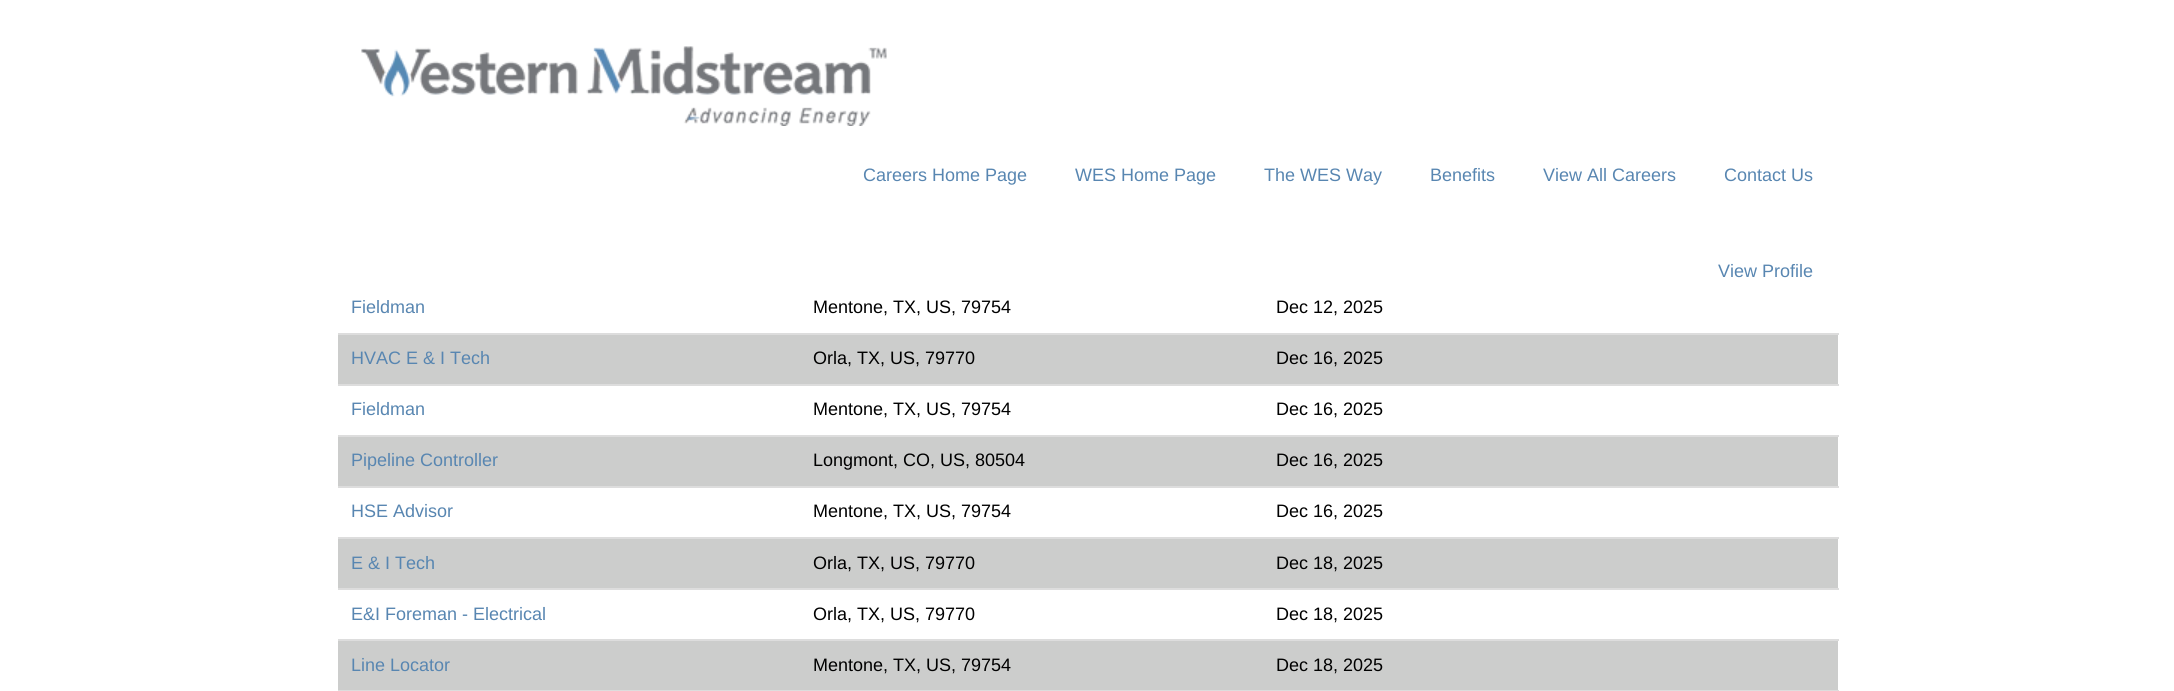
#include <cairo/cairo.h>
#include <math.h>
#include <stddef.h>


static void draw_image(cairo_t *cr, const char *path, double x, double y, double w, double h) {
  cairo_surface_t *image = cairo_image_surface_create_from_png(path);
  cairo_save(cr);
  cairo_set_source_surface(cr, image, x, y);
  cairo_rectangle(cr, x, y, w, h);
  cairo_fill(cr);
  cairo_restore(cr);
  cairo_surface_destroy(image);
}

static void draw(cairo_t *cr) {
  cairo_set_source_rgb(cr, 1, 1, 1);
  cairo_paint(cr);
  draw_image(cr, "images/1.png", 361, 46, 526, 80);
  cairo_set_source_rgb(cr, 204 / 255.0, 205 / 255.0, 204 / 255.0);
  cairo_rectangle(cr, 338, 335, 1500, 49);
  cairo_fill(cr);
  cairo_set_source_rgb(cr, 221 / 255.0, 221 / 255.0, 221 / 255.0);
  cairo_rectangle(cr, 338, 333, 1501, 2);
  cairo_fill(cr);
  cairo_rectangle(cr, 338, 384, 1501, 2);
  cairo_fill(cr);
  cairo_set_source_rgb(cr, 204 / 255.0, 205 / 255.0, 204 / 255.0);
  cairo_rectangle(cr, 338, 437, 1500, 49);
  cairo_fill(cr);
  cairo_set_source_rgb(cr, 221 / 255.0, 221 / 255.0, 221 / 255.0);
  cairo_rectangle(cr, 338, 435, 1501, 2);
  cairo_fill(cr);
  cairo_rectangle(cr, 338, 486, 1501, 2);
  cairo_fill(cr);
  cairo_set_source_rgb(cr, 204 / 255.0, 205 / 255.0, 204 / 255.0);
  cairo_rectangle(cr, 338, 539, 1500, 49);
  cairo_fill(cr);
  cairo_set_source_rgb(cr, 221 / 255.0, 221 / 255.0, 221 / 255.0);
  cairo_rectangle(cr, 338, 537, 1501, 2);
  cairo_fill(cr);
  cairo_rectangle(cr, 338, 588, 1501, 2);
  cairo_fill(cr);
  cairo_set_source_rgb(cr, 204 / 255.0, 205 / 255.0, 204 / 255.0);
  cairo_rectangle(cr, 338, 641, 1500, 49);
  cairo_fill(cr);
  cairo_set_source_rgb(cr, 221 / 255.0, 221 / 255.0, 221 / 255.0);
  cairo_rectangle(cr, 338, 639, 1501, 2);
  cairo_fill(cr);
  cairo_rectangle(cr, 338, 690, 1501, 1);
  cairo_fill(cr);
  cairo_select_font_face(cr, "Liberation Sans", CAIRO_FONT_SLANT_NORMAL, CAIRO_FONT_WEIGHT_NORMAL);
  cairo_set_font_size(cr, 18);
  cairo_set_source_rgb(cr, 88 / 255.0, 134 / 255.0, 177 / 255.0);
  cairo_move_to(cr, 863, 181);
  cairo_show_text(cr, "Careers Home Page");
  cairo_move_to(cr, 1075, 181);
  cairo_show_text(cr, "WES Home Page");
  cairo_move_to(cr, 1264, 181);
  cairo_show_text(cr, "The WES Way");
  cairo_move_to(cr, 1430, 181);
  cairo_show_text(cr, "Benefits");
  cairo_move_to(cr, 1543, 181);
  cairo_show_text(cr, "View All Careers");
  cairo_move_to(cr, 1724, 181);
  cairo_show_text(cr, "Contact Us");
  cairo_move_to(cr, 1718, 277);
  cairo_show_text(cr, "View Profile");
  cairo_move_to(cr, 351, 313);
  cairo_show_text(cr, "Fieldman");
  cairo_set_source_rgb(cr, 1, 1, 1);
  cairo_rectangle(cr, 363, 299, 26, 1);
  cairo_fill(cr);
  cairo_set_source_rgb(cr, 0, 0, 0);
  cairo_move_to(cr, 813, 313);
  cairo_show_text(cr, "Mentone, TX, US, 79754");
  cairo_move_to(cr, 1276, 313);
  cairo_show_text(cr, "Dec 12, 2025");
  cairo_set_source_rgb(cr, 88 / 255.0, 134 / 255.0, 177 / 255.0);
  cairo_move_to(cr, 351, 364);
  cairo_show_text(cr, "HVAC E & I Tech");
  cairo_set_source_rgb(cr, 0, 0, 0);
  cairo_move_to(cr, 813, 364);
  cairo_show_text(cr, "Orla, TX, US, 79770");
  cairo_move_to(cr, 1276, 364);
  cairo_show_text(cr, "Dec 16, 2025");
  cairo_set_source_rgb(cr, 88 / 255.0, 134 / 255.0, 177 / 255.0);
  cairo_move_to(cr, 351, 415);
  cairo_show_text(cr, "Fieldman");
  cairo_set_source_rgb(cr, 0, 0, 0);
  cairo_move_to(cr, 813, 415);
  cairo_show_text(cr, "Mentone, TX, US, 79754");
  cairo_move_to(cr, 1276, 415);
  cairo_show_text(cr, "Dec 16, 2025");
  cairo_set_source_rgb(cr, 88 / 255.0, 134 / 255.0, 177 / 255.0);
  cairo_move_to(cr, 351, 466);
  cairo_show_text(cr, "Pipeline Controller");
  cairo_set_source_rgb(cr, 0, 0, 0);
  cairo_move_to(cr, 813, 466);
  cairo_show_text(cr, "Longmont, CO, US, 80504");
  cairo_move_to(cr, 1276, 466);
  cairo_show_text(cr, "Dec 16, 2025");
  cairo_set_source_rgb(cr, 88 / 255.0, 134 / 255.0, 177 / 255.0);
  cairo_move_to(cr, 351, 517);
  cairo_show_text(cr, "HSE Advisor");
  cairo_set_source_rgb(cr, 0, 0, 0);
  cairo_move_to(cr, 813, 517);
  cairo_show_text(cr, "Mentone, TX, US, 79754");
  cairo_move_to(cr, 1276, 517);
  cairo_show_text(cr, "Dec 16, 2025");
  cairo_set_source_rgb(cr, 88 / 255.0, 134 / 255.0, 177 / 255.0);
  cairo_move_to(cr, 351, 569);
  cairo_show_text(cr, "E & I Tech");
  cairo_set_source_rgb(cr, 0, 0, 0);
  cairo_move_to(cr, 813, 569);
  cairo_show_text(cr, "Orla, TX, US, 79770");
  cairo_move_to(cr, 1276, 569);
  cairo_show_text(cr, "Dec 18, 2025");
  cairo_set_source_rgb(cr, 88 / 255.0, 134 / 255.0, 177 / 255.0);
  cairo_move_to(cr, 351, 620);
  cairo_show_text(cr, "E&I Foreman - Electrical");
  cairo_set_source_rgb(cr, 0, 0, 0);
  cairo_move_to(cr, 813, 620);
  cairo_show_text(cr, "Orla, TX, US, 79770");
  cairo_move_to(cr, 1276, 620);
  cairo_show_text(cr, "Dec 18, 2025");
  cairo_set_source_rgb(cr, 88 / 255.0, 134 / 255.0, 177 / 255.0);
  cairo_move_to(cr, 351, 671);
  cairo_show_text(cr, "Line Locator");
  cairo_set_source_rgb(cr, 0, 0, 0);
  cairo_move_to(cr, 813, 671);
  cairo_show_text(cr, "Mentone, TX, US, 79754");
  cairo_move_to(cr, 1276, 671);
  cairo_show_text(cr, "Dec 18, 2025");
}

int main(void) {
  cairo_surface_t *surface = cairo_image_surface_create(CAIRO_FORMAT_RGB24, 2174, 691);
  cairo_t *cr = cairo_create(surface);
  cairo_font_options_t *options = cairo_font_options_create();
  cairo_font_options_set_hint_metrics(options, CAIRO_HINT_METRICS_OFF);
  cairo_font_options_set_hint_style(options, CAIRO_HINT_STYLE_NONE);
  cairo_set_font_options(cr, options);
  cairo_set_miter_limit(cr, 4);
  draw(cr);
  cairo_surface_write_to_png(surface, "out.png");
  cairo_font_options_destroy(options);
  cairo_destroy(cr);
  cairo_surface_destroy(surface);
  return 0;
}
